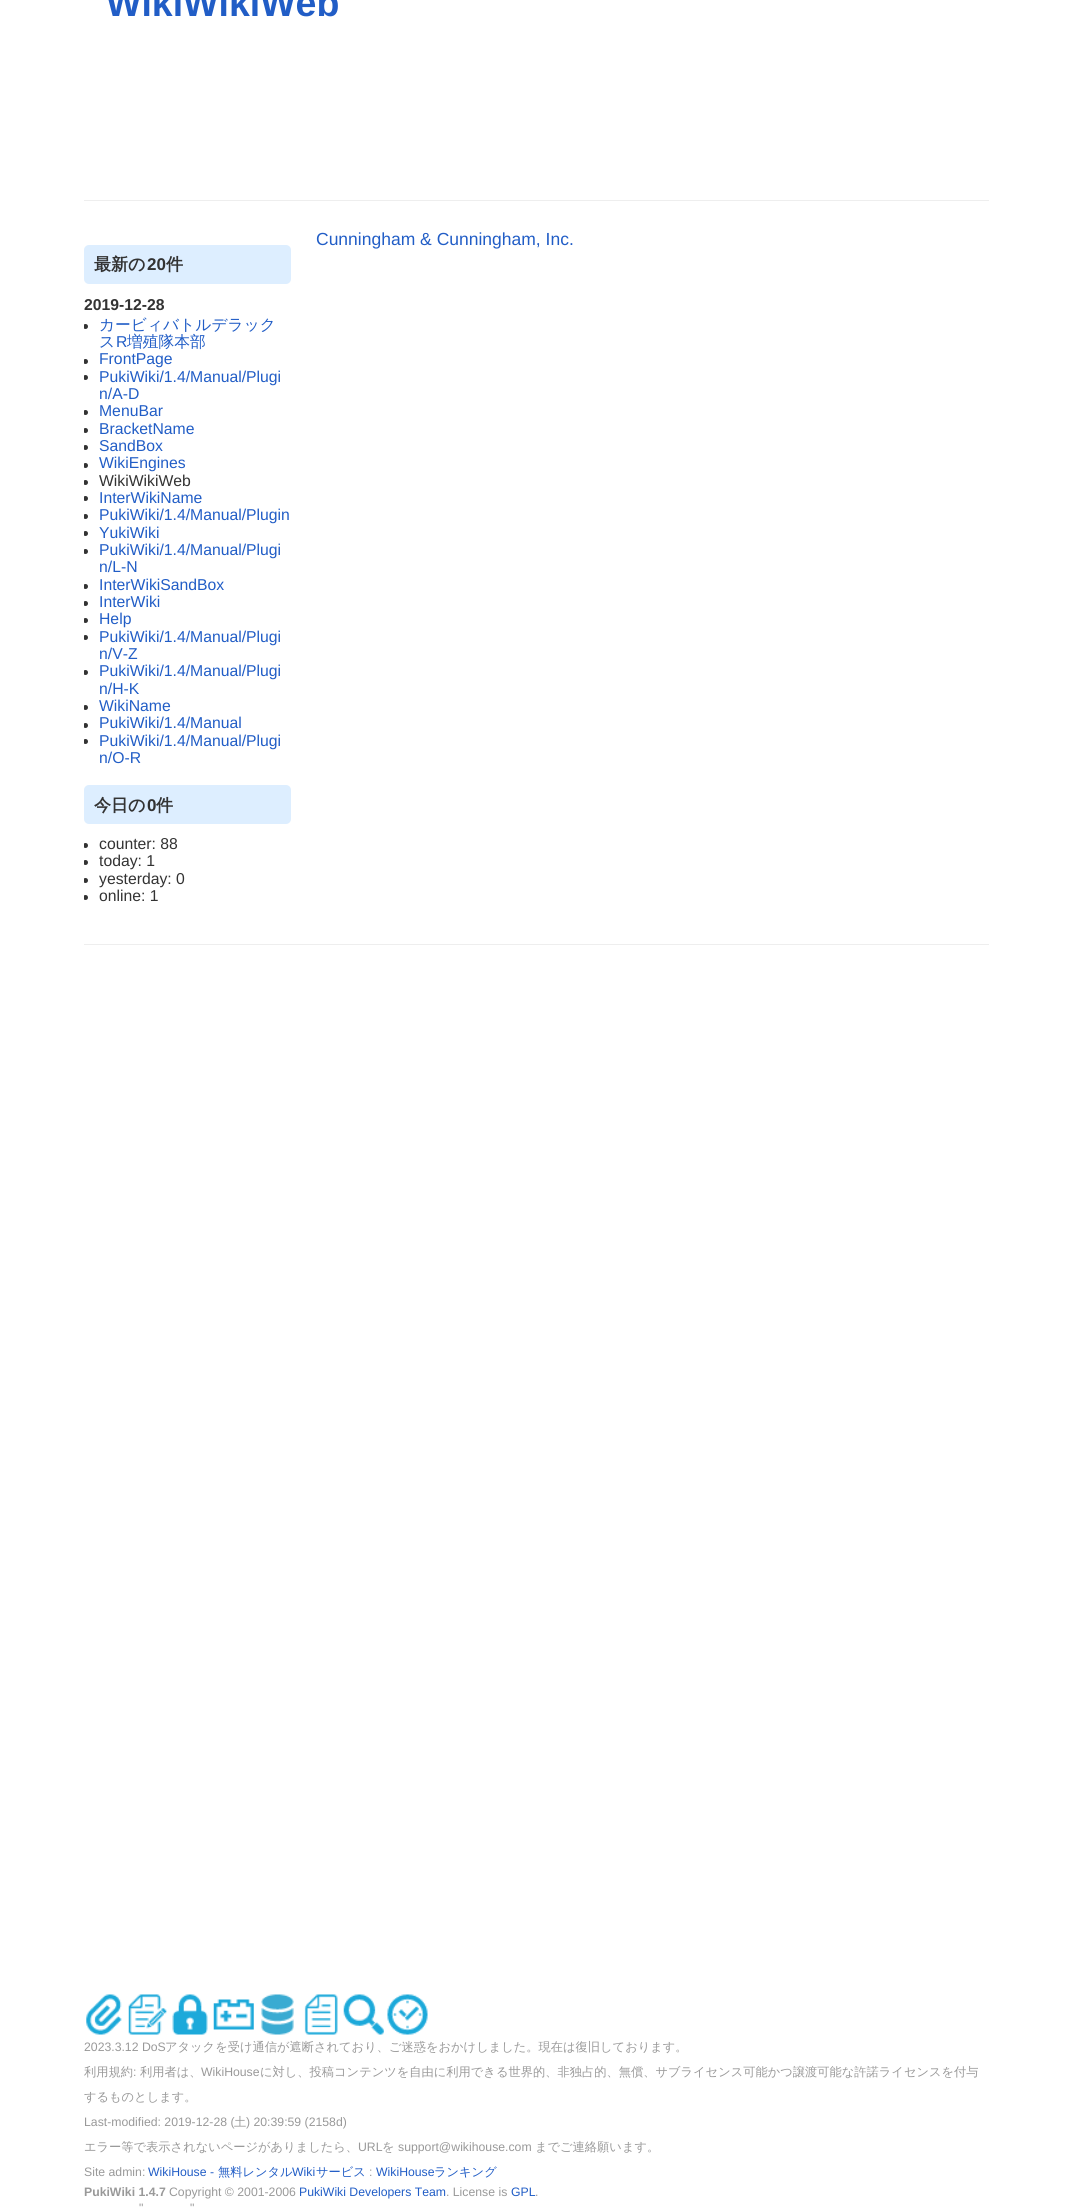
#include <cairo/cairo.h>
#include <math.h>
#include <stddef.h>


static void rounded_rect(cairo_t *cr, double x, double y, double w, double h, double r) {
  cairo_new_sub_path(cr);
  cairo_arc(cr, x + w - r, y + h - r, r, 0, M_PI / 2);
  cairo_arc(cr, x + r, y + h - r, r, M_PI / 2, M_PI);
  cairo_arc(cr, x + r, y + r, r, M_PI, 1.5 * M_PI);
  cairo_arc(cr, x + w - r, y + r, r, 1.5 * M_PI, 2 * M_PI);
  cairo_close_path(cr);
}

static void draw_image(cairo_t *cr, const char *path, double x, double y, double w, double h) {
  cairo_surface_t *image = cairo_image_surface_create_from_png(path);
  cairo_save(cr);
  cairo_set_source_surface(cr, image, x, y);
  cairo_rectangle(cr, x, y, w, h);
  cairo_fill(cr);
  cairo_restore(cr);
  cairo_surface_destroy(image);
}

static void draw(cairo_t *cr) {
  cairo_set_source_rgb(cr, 1, 1, 1);
  cairo_paint(cr);
  cairo_set_source_rgb(cr, 238 / 255.0, 238 / 255.0, 238 / 255.0);
  cairo_rectangle(cr, 84, 200, 905, 1);
  cairo_fill(cr);
  cairo_set_source_rgb(cr, 221 / 255.0, 238 / 255.0, 1);
  rounded_rect(cr, 84, 245, 207, 39, 5);
  cairo_fill(cr);
  cairo_save(cr);
  cairo_rectangle(cr, 84, 228, 207, 691);
  cairo_clip(cr);
  cairo_set_source_rgb(cr, 51 / 255.0, 51 / 255.0, 51 / 255.0);
  cairo_arc(cr, 85.5, 326.5, 2.5, 0, 2 * M_PI);
  cairo_fill(cr);
  cairo_arc(cr, 85.5, 361.5, 2.5, 0, 2 * M_PI);
  cairo_fill(cr);
  cairo_arc(cr, 85.5, 377.5, 2.5, 0, 2 * M_PI);
  cairo_fill(cr);
  cairo_arc(cr, 85.5, 412.5, 2.5, 0, 2 * M_PI);
  cairo_fill(cr);
  cairo_arc(cr, 85.5, 430.5, 2.5, 0, 2 * M_PI);
  cairo_fill(cr);
  cairo_arc(cr, 85.5, 447.5, 2.5, 0, 2 * M_PI);
  cairo_fill(cr);
  cairo_arc(cr, 85.5, 465.5, 2.5, 0, 2 * M_PI);
  cairo_fill(cr);
  cairo_arc(cr, 85.5, 482.5, 2.5, 0, 2 * M_PI);
  cairo_fill(cr);
  cairo_arc(cr, 85.5, 498.5, 2.5, 0, 2 * M_PI);
  cairo_fill(cr);
  cairo_arc(cr, 85.5, 516.5, 2.5, 0, 2 * M_PI);
  cairo_fill(cr);
  cairo_arc(cr, 85.5, 533.5, 2.5, 0, 2 * M_PI);
  cairo_fill(cr);
  cairo_arc(cr, 85.5, 551.5, 2.5, 0, 2 * M_PI);
  cairo_fill(cr);
  cairo_arc(cr, 85.5, 586.5, 2.5, 0, 2 * M_PI);
  cairo_fill(cr);
  cairo_arc(cr, 85.5, 603.5, 2.5, 0, 2 * M_PI);
  cairo_fill(cr);
  cairo_arc(cr, 85.5, 620.5, 2.5, 0, 2 * M_PI);
  cairo_fill(cr);
  cairo_arc(cr, 85.5, 637.5, 2.5, 0, 2 * M_PI);
  cairo_fill(cr);
  cairo_arc(cr, 85.5, 672.5, 2.5, 0, 2 * M_PI);
  cairo_fill(cr);
  cairo_arc(cr, 85.5, 707.5, 2.5, 0, 2 * M_PI);
  cairo_fill(cr);
  cairo_arc(cr, 85.5, 725.5, 2.5, 0, 2 * M_PI);
  cairo_fill(cr);
  cairo_arc(cr, 85.5, 741.5, 2.5, 0, 2 * M_PI);
  cairo_fill(cr);
  cairo_restore(cr);
  rounded_rect(cr, 84, 785, 207, 39, 5);
  cairo_fill(cr);
  cairo_save(cr);
  cairo_rectangle(cr, 84, 228, 207, 691);
  cairo_clip(cr);
  cairo_set_source_rgb(cr, 51 / 255.0, 51 / 255.0, 51 / 255.0);
  cairo_arc(cr, 85.5, 845.5, 2.5, 0, 2 * M_PI);
  cairo_fill(cr);
  cairo_arc(cr, 85.5, 862.5, 2.5, 0, 2 * M_PI);
  cairo_fill(cr);
  cairo_arc(cr, 85.5, 880.5, 2.5, 0, 2 * M_PI);
  cairo_fill(cr);
  cairo_arc(cr, 85.5, 897.5, 2.5, 0, 2 * M_PI);
  cairo_fill(cr);
  cairo_restore(cr);
  cairo_set_source_rgb(cr, 238 / 255.0, 238 / 255.0, 238 / 255.0);
  cairo_rectangle(cr, 84, 944, 905, 1);
  cairo_fill(cr);
  draw_image(cr, "images/1.png", 86, 1994, 36, 41);
  draw_image(cr, "images/2.png", 128, 1994, 39, 41);
  draw_image(cr, "images/3.png", 172, 1994, 36, 41);
  draw_image(cr, "images/4.png", 213, 1999, 41, 31);
  draw_image(cr, "images/5.png", 261, 1994, 33, 41);
  draw_image(cr, "images/6.png", 304, 1994, 34, 41);
  draw_image(cr, "images/7.png", 343, 1994, 41, 41);
  draw_image(cr, "images/8.png", 387, 1994, 41, 41);
  cairo_select_font_face(cr, "Liberation Sans", CAIRO_FONT_SLANT_NORMAL, CAIRO_FONT_WEIGHT_BOLD);
  cairo_set_font_size(cr, 37.5);
  cairo_set_source_rgb(cr, 33 / 255.0, 93 / 255.0, 198 / 255.0);
  cairo_move_to(cr, 106, 16);
  cairo_show_text(cr, "WikiWikiWeb");
  cairo_select_font_face(cr, "Liberation Sans", CAIRO_FONT_SLANT_NORMAL, CAIRO_FONT_WEIGHT_NORMAL);
  cairo_set_font_size(cr, 17.5);
  cairo_move_to(cr, 316, 245);
  cairo_show_text(cr, "Cunningham & Cunningham, Inc.");
  cairo_select_font_face(cr, "WenQuanYi Zen Hei", CAIRO_FONT_SLANT_NORMAL, CAIRO_FONT_WEIGHT_BOLD);
  cairo_set_font_size(cr, 17);
  cairo_set_source_rgb(cr, 51 / 255.0, 51 / 255.0, 51 / 255.0);
  cairo_move_to(cr, 94, 270);
  cairo_show_text(cr, "最新の");
  cairo_select_font_face(cr, "Liberation Sans", CAIRO_FONT_SLANT_NORMAL, CAIRO_FONT_WEIGHT_BOLD);
  cairo_move_to(cr, 147, 270);
  cairo_show_text(cr, "20");
  cairo_select_font_face(cr, "WenQuanYi Zen Hei", CAIRO_FONT_SLANT_NORMAL, CAIRO_FONT_WEIGHT_BOLD);
  cairo_move_to(cr, 166, 270);
  cairo_show_text(cr, "件");
  cairo_select_font_face(cr, "Liberation Sans", CAIRO_FONT_SLANT_NORMAL, CAIRO_FONT_WEIGHT_BOLD);
  cairo_set_font_size(cr, 15.75);
  cairo_move_to(cr, 84, 310);
  cairo_show_text(cr, "2019-12-28");
  cairo_select_font_face(cr, "WenQuanYi Zen Hei Medium", CAIRO_FONT_SLANT_NORMAL, CAIRO_FONT_WEIGHT_NORMAL);
  cairo_set_source_rgb(cr, 33 / 255.0, 93 / 255.0, 198 / 255.0);
  cairo_move_to(cr, 99, 330);
  cairo_show_text(cr, "カービィバトルデラック");
  cairo_move_to(cr, 99, 347);
  cairo_show_text(cr, "ス");
  cairo_select_font_face(cr, "Liberation Sans", CAIRO_FONT_SLANT_NORMAL, CAIRO_FONT_WEIGHT_NORMAL);
  cairo_move_to(cr, 116, 347);
  cairo_show_text(cr, "R");
  cairo_select_font_face(cr, "WenQuanYi Zen Hei Medium", CAIRO_FONT_SLANT_NORMAL, CAIRO_FONT_WEIGHT_NORMAL);
  cairo_move_to(cr, 127, 347);
  cairo_show_text(cr, "増殖隊本部");
  cairo_select_font_face(cr, "Liberation Sans", CAIRO_FONT_SLANT_NORMAL, CAIRO_FONT_WEIGHT_NORMAL);
  cairo_move_to(cr, 99, 364);
  cairo_show_text(cr, "FrontPage");
  cairo_move_to(cr, 99, 382);
  cairo_show_text(cr, "PukiWiki/1.4/Manual/Plugi");
  cairo_move_to(cr, 99, 399);
  cairo_show_text(cr, "n/A-D");
  cairo_move_to(cr, 99, 416);
  cairo_show_text(cr, "MenuBar");
  cairo_move_to(cr, 99, 434);
  cairo_show_text(cr, "BracketName");
  cairo_move_to(cr, 99, 451);
  cairo_show_text(cr, "SandBox");
  cairo_move_to(cr, 99, 468);
  cairo_show_text(cr, "WikiEngines");
  cairo_set_source_rgb(cr, 51 / 255.0, 51 / 255.0, 51 / 255.0);
  cairo_move_to(cr, 99, 486);
  cairo_show_text(cr, "WikiWikiWeb");
  cairo_set_source_rgb(cr, 33 / 255.0, 93 / 255.0, 198 / 255.0);
  cairo_move_to(cr, 99, 503);
  cairo_show_text(cr, "InterWikiName");
  cairo_move_to(cr, 99, 520);
  cairo_show_text(cr, "PukiWiki/1.4/Manual/Plugin");
  cairo_move_to(cr, 99, 538);
  cairo_show_text(cr, "YukiWiki");
  cairo_move_to(cr, 99, 555);
  cairo_show_text(cr, "PukiWiki/1.4/Manual/Plugi");
  cairo_move_to(cr, 99, 572);
  cairo_show_text(cr, "n/L-N");
  cairo_move_to(cr, 99, 590);
  cairo_show_text(cr, "InterWikiSandBox");
  cairo_move_to(cr, 99, 607);
  cairo_show_text(cr, "InterWiki");
  cairo_move_to(cr, 99, 624);
  cairo_show_text(cr, "Help");
  cairo_move_to(cr, 99, 642);
  cairo_show_text(cr, "PukiWiki/1.4/Manual/Plugi");
  cairo_move_to(cr, 99, 659);
  cairo_show_text(cr, "n/V-Z");
  cairo_move_to(cr, 99, 676);
  cairo_show_text(cr, "PukiWiki/1.4/Manual/Plugi");
  cairo_move_to(cr, 99, 694);
  cairo_show_text(cr, "n/H-K");
  cairo_move_to(cr, 99, 711);
  cairo_show_text(cr, "WikiName");
  cairo_move_to(cr, 99, 728);
  cairo_show_text(cr, "PukiWiki/1.4/Manual");
  cairo_move_to(cr, 99, 746);
  cairo_show_text(cr, "PukiWiki/1.4/Manual/Plugi");
  cairo_move_to(cr, 99, 763);
  cairo_show_text(cr, "n/O-R");
  cairo_select_font_face(cr, "WenQuanYi Zen Hei", CAIRO_FONT_SLANT_NORMAL, CAIRO_FONT_WEIGHT_BOLD);
  cairo_set_font_size(cr, 17);
  cairo_set_source_rgb(cr, 51 / 255.0, 51 / 255.0, 51 / 255.0);
  cairo_move_to(cr, 94, 811);
  cairo_show_text(cr, "今日の");
  cairo_select_font_face(cr, "Liberation Sans", CAIRO_FONT_SLANT_NORMAL, CAIRO_FONT_WEIGHT_BOLD);
  cairo_move_to(cr, 147, 811);
  cairo_show_text(cr, "0");
  cairo_select_font_face(cr, "WenQuanYi Zen Hei", CAIRO_FONT_SLANT_NORMAL, CAIRO_FONT_WEIGHT_BOLD);
  cairo_move_to(cr, 156, 811);
  cairo_show_text(cr, "件");
  cairo_select_font_face(cr, "Liberation Sans", CAIRO_FONT_SLANT_NORMAL, CAIRO_FONT_WEIGHT_NORMAL);
  cairo_set_font_size(cr, 15.75);
  cairo_move_to(cr, 99, 849);
  cairo_show_text(cr, "counter: 88");
  cairo_move_to(cr, 99, 866);
  cairo_show_text(cr, "today: 1");
  cairo_move_to(cr, 99, 884);
  cairo_show_text(cr, "yesterday: 0");
  cairo_move_to(cr, 99, 901);
  cairo_show_text(cr, "online: 1");
  cairo_set_font_size(cr, 12.25);
  cairo_set_source_rgb(cr, 153 / 255.0, 153 / 255.0, 153 / 255.0);
  cairo_move_to(cr, 84, 2051);
  cairo_show_text(cr, "2023.3.12 DoS");
  cairo_select_font_face(cr, "WenQuanYi Zen Hei Medium", CAIRO_FONT_SLANT_NORMAL, CAIRO_FONT_WEIGHT_NORMAL);
  cairo_move_to(cr, 165, 2051);
  cairo_show_text(cr, "アタックを受け通信が遮断されており、ご迷惑をおかけしました。現在は復旧しております。");
  cairo_move_to(cr, 84, 2076);
  cairo_show_text(cr, "利用規約");
  cairo_select_font_face(cr, "Liberation Sans", CAIRO_FONT_SLANT_NORMAL, CAIRO_FONT_WEIGHT_NORMAL);
  cairo_move_to(cr, 133, 2076);
  cairo_show_text(cr, ":");
  cairo_select_font_face(cr, "WenQuanYi Zen Hei Medium", CAIRO_FONT_SLANT_NORMAL, CAIRO_FONT_WEIGHT_NORMAL);
  cairo_move_to(cr, 140, 2076);
  cairo_show_text(cr, "利用者は、");
  cairo_select_font_face(cr, "Liberation Sans", CAIRO_FONT_SLANT_NORMAL, CAIRO_FONT_WEIGHT_NORMAL);
  cairo_move_to(cr, 201, 2076);
  cairo_show_text(cr, "WikiHouse");
  cairo_select_font_face(cr, "WenQuanYi Zen Hei Medium", CAIRO_FONT_SLANT_NORMAL, CAIRO_FONT_WEIGHT_NORMAL);
  cairo_move_to(cr, 260, 2076);
  cairo_show_text(cr, "に対し、投稿コンテンツを自由に利用できる世界的、非独占的、無償、サブライセンス可能かつ譲渡可能な許諾ライセンスを付与");
  cairo_move_to(cr, 84, 2101);
  cairo_show_text(cr, "するものとします。");
  cairo_select_font_face(cr, "Liberation Sans", CAIRO_FONT_SLANT_NORMAL, CAIRO_FONT_WEIGHT_NORMAL);
  cairo_move_to(cr, 84, 2126);
  cairo_show_text(cr, "Last-modified: 2019-12-28 (");
  cairo_select_font_face(cr, "WenQuanYi Zen Hei Medium", CAIRO_FONT_SLANT_NORMAL, CAIRO_FONT_WEIGHT_NORMAL);
  cairo_move_to(cr, 234, 2126);
  cairo_show_text(cr, "土");
  cairo_select_font_face(cr, "Liberation Sans", CAIRO_FONT_SLANT_NORMAL, CAIRO_FONT_WEIGHT_NORMAL);
  cairo_move_to(cr, 246, 2126);
  cairo_show_text(cr, ") 20:39:59 (2158d)");
  cairo_select_font_face(cr, "WenQuanYi Zen Hei Medium", CAIRO_FONT_SLANT_NORMAL, CAIRO_FONT_WEIGHT_NORMAL);
  cairo_move_to(cr, 84, 2151);
  cairo_show_text(cr, "エラー等で表示されないページがありましたら、");
  cairo_select_font_face(cr, "Liberation Sans", CAIRO_FONT_SLANT_NORMAL, CAIRO_FONT_WEIGHT_NORMAL);
  cairo_move_to(cr, 358, 2151);
  cairo_show_text(cr, "URL");
  cairo_select_font_face(cr, "WenQuanYi Zen Hei Medium", CAIRO_FONT_SLANT_NORMAL, CAIRO_FONT_WEIGHT_NORMAL);
  cairo_move_to(cr, 382, 2151);
  cairo_show_text(cr, "を");
  cairo_select_font_face(cr, "Liberation Sans", CAIRO_FONT_SLANT_NORMAL, CAIRO_FONT_WEIGHT_NORMAL);
  cairo_move_to(cr, 398, 2151);
  cairo_show_text(cr, "support@wikihouse.com");
  cairo_select_font_face(cr, "WenQuanYi Zen Hei Medium", CAIRO_FONT_SLANT_NORMAL, CAIRO_FONT_WEIGHT_NORMAL);
  cairo_move_to(cr, 535, 2151);
  cairo_show_text(cr, "までご連絡願います。");
  cairo_select_font_face(cr, "Liberation Sans", CAIRO_FONT_SLANT_NORMAL, CAIRO_FONT_WEIGHT_NORMAL);
  cairo_move_to(cr, 84, 2176);
  cairo_show_text(cr, "Site admin:");
  cairo_set_source_rgb(cr, 33 / 255.0, 93 / 255.0, 198 / 255.0);
  cairo_move_to(cr, 148, 2176);
  cairo_show_text(cr, "WikiHouse -");
  cairo_select_font_face(cr, "WenQuanYi Zen Hei Medium", CAIRO_FONT_SLANT_NORMAL, CAIRO_FONT_WEIGHT_NORMAL);
  cairo_move_to(cr, 218, 2176);
  cairo_show_text(cr, "無料レンタル");
  cairo_select_font_face(cr, "Liberation Sans", CAIRO_FONT_SLANT_NORMAL, CAIRO_FONT_WEIGHT_NORMAL);
  cairo_move_to(cr, 292, 2176);
  cairo_show_text(cr, "Wiki");
  cairo_select_font_face(cr, "WenQuanYi Zen Hei Medium", CAIRO_FONT_SLANT_NORMAL, CAIRO_FONT_WEIGHT_NORMAL);
  cairo_move_to(cr, 316, 2176);
  cairo_show_text(cr, "サービス");
  cairo_select_font_face(cr, "Liberation Sans", CAIRO_FONT_SLANT_NORMAL, CAIRO_FONT_WEIGHT_NORMAL);
  cairo_set_source_rgb(cr, 153 / 255.0, 153 / 255.0, 153 / 255.0);
  cairo_move_to(cr, 369, 2176);
  cairo_show_text(cr, ":");
  cairo_set_source_rgb(cr, 33 / 255.0, 93 / 255.0, 198 / 255.0);
  cairo_move_to(cr, 376, 2176);
  cairo_show_text(cr, "WikiHouse");
  cairo_select_font_face(cr, "WenQuanYi Zen Hei Medium", CAIRO_FONT_SLANT_NORMAL, CAIRO_FONT_WEIGHT_NORMAL);
  cairo_move_to(cr, 434, 2176);
  cairo_show_text(cr, "ランキング");
  cairo_select_font_face(cr, "Liberation Sans", CAIRO_FONT_SLANT_NORMAL, CAIRO_FONT_WEIGHT_BOLD);
  cairo_set_source_rgb(cr, 153 / 255.0, 153 / 255.0, 153 / 255.0);
  cairo_move_to(cr, 84, 2196);
  cairo_show_text(cr, "PukiWiki 1.4.7");
  cairo_select_font_face(cr, "Liberation Sans", CAIRO_FONT_SLANT_NORMAL, CAIRO_FONT_WEIGHT_NORMAL);
  cairo_move_to(cr, 169, 2196);
  cairo_show_text(cr, "Copyright © 2001-2006");
  cairo_set_source_rgb(cr, 33 / 255.0, 93 / 255.0, 198 / 255.0);
  cairo_move_to(cr, 299, 2196);
  cairo_show_text(cr, "PukiWiki Developers Team");
  cairo_set_source_rgb(cr, 153 / 255.0, 153 / 255.0, 153 / 255.0);
  cairo_move_to(cr, 446, 2196);
  cairo_show_text(cr, ". License is");
  cairo_set_source_rgb(cr, 33 / 255.0, 93 / 255.0, 198 / 255.0);
  cairo_move_to(cr, 511, 2196);
  cairo_show_text(cr, "GPL");
  cairo_set_source_rgb(cr, 153 / 255.0, 153 / 255.0, 153 / 255.0);
  cairo_move_to(cr, 535, 2196);
  cairo_show_text(cr, ".");
  cairo_move_to(cr, 139, 2212);
  cairo_show_text(cr, "\"");
  cairo_move_to(cr, 190, 2212);
  cairo_show_text(cr, "\"");
}

int main(void) {
  cairo_surface_t *surface = cairo_image_surface_create(CAIRO_FORMAT_RGB24, 1072, 2207);
  cairo_t *cr = cairo_create(surface);
  cairo_font_options_t *options = cairo_font_options_create();
  cairo_font_options_set_hint_metrics(options, CAIRO_HINT_METRICS_OFF);
  cairo_font_options_set_hint_style(options, CAIRO_HINT_STYLE_NONE);
  cairo_set_font_options(cr, options);
  cairo_set_miter_limit(cr, 4);
  draw(cr);
  cairo_surface_write_to_png(surface, "out.png");
  cairo_font_options_destroy(options);
  cairo_destroy(cr);
  cairo_surface_destroy(surface);
  return 0;
}
